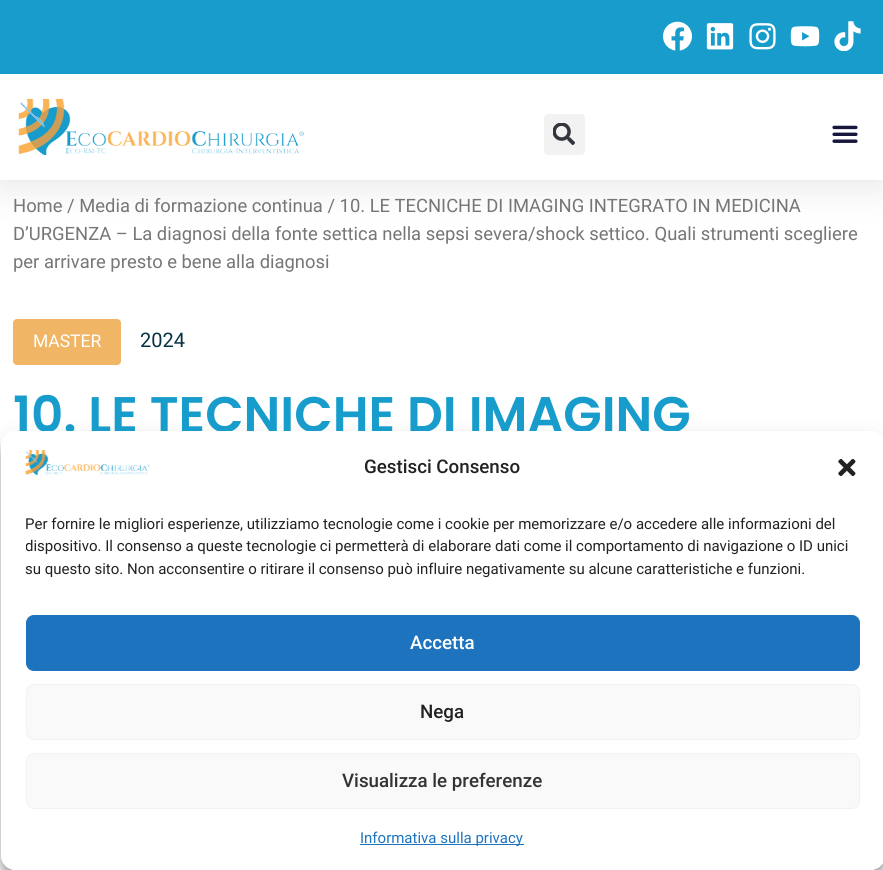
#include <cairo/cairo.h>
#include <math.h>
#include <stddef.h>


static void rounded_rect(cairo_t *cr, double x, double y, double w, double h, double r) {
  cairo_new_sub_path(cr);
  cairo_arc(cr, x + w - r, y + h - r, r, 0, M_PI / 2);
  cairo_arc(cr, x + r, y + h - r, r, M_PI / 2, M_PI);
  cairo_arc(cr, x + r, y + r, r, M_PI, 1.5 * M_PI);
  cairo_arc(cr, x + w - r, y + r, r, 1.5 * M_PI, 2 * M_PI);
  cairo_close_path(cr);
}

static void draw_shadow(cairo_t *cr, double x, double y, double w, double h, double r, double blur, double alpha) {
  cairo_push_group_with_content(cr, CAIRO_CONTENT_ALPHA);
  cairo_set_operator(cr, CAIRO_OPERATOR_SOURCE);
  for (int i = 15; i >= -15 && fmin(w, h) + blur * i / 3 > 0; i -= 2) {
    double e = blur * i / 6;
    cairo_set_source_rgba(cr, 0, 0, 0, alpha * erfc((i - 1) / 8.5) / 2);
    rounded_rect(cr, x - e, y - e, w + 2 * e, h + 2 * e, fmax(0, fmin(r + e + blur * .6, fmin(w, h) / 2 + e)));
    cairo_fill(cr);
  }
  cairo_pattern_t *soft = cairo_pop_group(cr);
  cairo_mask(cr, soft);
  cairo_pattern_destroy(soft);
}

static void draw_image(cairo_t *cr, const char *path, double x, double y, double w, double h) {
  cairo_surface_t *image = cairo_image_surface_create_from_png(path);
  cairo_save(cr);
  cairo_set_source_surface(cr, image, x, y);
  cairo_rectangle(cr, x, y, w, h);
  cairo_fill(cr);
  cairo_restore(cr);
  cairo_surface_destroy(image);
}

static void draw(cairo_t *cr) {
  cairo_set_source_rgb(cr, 1, 1, 1);
  cairo_paint(cr);
  cairo_set_source_rgb(cr, 0, 0, 0);
  draw_shadow(cr, 0, 6, 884, 180, 0, 19, 0.1);
  cairo_set_source_rgb(cr, 23 / 255.0, 156 / 255.0, 203 / 255.0);
  cairo_rectangle(cr, 0, 0, 883, 74);
  cairo_fill(cr);
  draw_image(cr, "images/1.png", 663, 21, 29, 30);
  draw_image(cr, "images/2.png", 706, 23, 28, 27);
  draw_image(cr, "images/3.png", 749, 23, 27, 27);
  draw_image(cr, "images/4.png", 790, 26, 30, 21);
  draw_image(cr, "images/5.png", 834, 21, 27, 30);
  cairo_set_source_rgb(cr, 1, 1, 1);
  cairo_rectangle(cr, 0, 74, 883, 106);
  cairo_fill(cr);
  draw_image(cr, "images/6.png", 18, 98, 286, 57);
  cairo_set_source_rgb(cr, 242 / 255.0, 242 / 255.0, 242 / 255.0);
  rounded_rect(cr, 544, 114, 41, 41, 4);
  cairo_fill(cr);
  draw_image(cr, "images/7.png", 553, 123, 22, 23);
  draw_image(cr, "images/8.png", 832, 125, 26, 18);
  cairo_set_source_rgb(cr, 240 / 255.0, 182 / 255.0, 102 / 255.0);
  rounded_rect(cr, 13, 319, 108, 46, 4);
  cairo_fill(cr);
  draw_image(cr, "images/9.png", 13, 869, 3, 1);
  cairo_save(cr);
  cairo_set_fill_rule(cr, CAIRO_FILL_RULE_EVEN_ODD);
  cairo_new_path(cr);
  cairo_move_to(cr, 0, 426);
  cairo_line_to(cr, 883, 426);
  cairo_line_to(cr, 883, 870);
  cairo_line_to(cr, 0, 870);
  cairo_close_path(cr);
  cairo_move_to(cr, 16, 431);
  cairo_line_to(cr, 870, 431);
  cairo_curve_to(cr, 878.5, 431, 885, 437.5, 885, 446);
  cairo_line_to(cr, 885, 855);
  cairo_curve_to(cr, 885, 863.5, 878.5, 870, 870, 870);
  cairo_line_to(cr, 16, 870);
  cairo_curve_to(cr, 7.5, 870, 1, 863.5, 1, 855);
  cairo_line_to(cr, 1, 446);
  cairo_curve_to(cr, 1, 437.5, 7.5, 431, 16, 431);
  cairo_close_path(cr);
  cairo_clip(cr);
  cairo_set_source_rgb(cr, 0, 0, 0);
  draw_shadow(cr, 1, 439, 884, 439, 15, 4, 0.23);
  cairo_restore(cr);
  cairo_save(cr);
  cairo_set_fill_rule(cr, CAIRO_FILL_RULE_EVEN_ODD);
  cairo_new_path(cr);
  cairo_move_to(cr, 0, 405);
  cairo_line_to(cr, 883, 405);
  cairo_line_to(cr, 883, 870);
  cairo_line_to(cr, 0, 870);
  cairo_close_path(cr);
  cairo_move_to(cr, 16, 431);
  cairo_line_to(cr, 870, 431);
  cairo_curve_to(cr, 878.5, 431, 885, 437.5, 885, 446);
  cairo_line_to(cr, 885, 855);
  cairo_curve_to(cr, 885, 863.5, 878.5, 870, 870, 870);
  cairo_line_to(cr, 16, 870);
  cairo_curve_to(cr, 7.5, 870, 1, 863.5, 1, 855);
  cairo_line_to(cr, 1, 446);
  cairo_curve_to(cr, 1, 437.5, 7.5, 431, 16, 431);
  cairo_close_path(cr);
  cairo_clip(cr);
  cairo_set_source_rgb(cr, 0, 0, 0);
  draw_shadow(cr, 1, 444, 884, 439, 15, 12.5, 0.19);
  cairo_restore(cr);
  cairo_select_font_face(cr, "Roboto", CAIRO_FONT_SLANT_NORMAL, CAIRO_FONT_WEIGHT_NORMAL);
  cairo_set_font_size(cr, 18.4);
  cairo_set_source_rgb(cr, 118 / 255.0, 118 / 255.0, 118 / 255.0);
  cairo_move_to(cr, 13, 212);
  cairo_show_text(cr, "Home / Media di formazione continua / 10. LE TECNICHE DI IMAGING INTEGRATO IN MEDICINA");
  cairo_move_to(cr, 13, 240);
  cairo_show_text(cr, "D’URGENZA – La diagnosi della fonte settica nella sepsi severa/shock settico. Quali strumenti scegliere");
  cairo_move_to(cr, 13, 268);
  cairo_show_text(cr, "per arrivare presto e bene alla diagnosi");
  cairo_set_font_size(cr, 17.5);
  cairo_set_source_rgb(cr, 1, 1, 1);
  cairo_move_to(cr, 33, 347);
  cairo_show_text(cr, "MASTER");
  cairo_set_font_size(cr, 20);
  cairo_set_source_rgb(cr, 6 / 255.0, 51 / 255.0, 67 / 255.0);
  cairo_move_to(cr, 140, 347);
  cairo_show_text(cr, "2024");
  cairo_select_font_face(cr, "Poppins SemiBold", CAIRO_FONT_SLANT_NORMAL, CAIRO_FONT_WEIGHT_NORMAL);
  cairo_set_font_size(cr, 50);
  cairo_set_source_rgb(cr, 23 / 255.0, 156 / 255.0, 203 / 255.0);
  cairo_move_to(cr, 13, 432);
  cairo_show_text(cr, "10. LE TECNICHE DI IMAGING");
  cairo_set_source_rgb(cr, 1, 1, 1);
  rounded_rect(cr, 1, 431, 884, 439, 15);
  cairo_fill(cr);
  draw_image(cr, "images/10.png", 24, 450, 126, 25);
  cairo_select_font_face(cr, "Roboto Medium", CAIRO_FONT_SLANT_NORMAL, CAIRO_FONT_WEIGHT_NORMAL);
  cairo_set_font_size(cr, 18.75);
  cairo_set_source_rgb(cr, 34 / 255.0, 34 / 255.0, 34 / 255.0);
  cairo_move_to(cr, 364, 473);
  cairo_show_text(cr, "Gestisci Consenso");
  draw_image(cr, "images/11.png", 838, 458, 18, 19);
  cairo_select_font_face(cr, "Roboto", CAIRO_FONT_SLANT_NORMAL, CAIRO_FONT_WEIGHT_NORMAL);
  cairo_set_font_size(cr, 15);
  cairo_move_to(cr, 25, 529);
  cairo_show_text(cr, "Per fornire le migliori esperienze, utilizziamo tecnologie come i cookie per memorizzare e/o accedere alle informazioni del");
  cairo_save(cr);
  cairo_rectangle(cr, 26, 513, 834, 73);
  cairo_clip(cr);
  cairo_move_to(cr, 25, 551);
  cairo_show_text(cr, "dispositivo. Il consenso a queste tecnologie ci permetterà di elaborare dati come il comportamento di navigazione o ID unici");
  cairo_restore(cr);
  cairo_move_to(cr, 25, 574);
  cairo_show_text(cr, "su questo sito. Non acconsentire o ritirare il consenso può influire negativamente su alcune caratteristiche e funzioni.");
  cairo_set_source_rgb(cr, 30 / 255.0, 115 / 255.0, 190 / 255.0);
  rounded_rect(cr, 26.5, 615.5, 833, 55, 7.5);
  cairo_fill_preserve(cr);
  cairo_set_line_width(cr, 1);
  cairo_stroke(cr);
  cairo_select_font_face(cr, "Roboto Medium", CAIRO_FONT_SLANT_NORMAL, CAIRO_FONT_WEIGHT_NORMAL);
  cairo_set_font_size(cr, 18.75);
  cairo_set_source_rgb(cr, 1, 1, 1);
  cairo_move_to(cr, 410, 649);
  cairo_show_text(cr, "Accetta");
  cairo_set_source_rgb(cr, 249 / 255.0, 249 / 255.0, 249 / 255.0);
  rounded_rect(cr, 26.5, 684.5, 833, 55, 7.5);
  cairo_fill_preserve(cr);
  cairo_set_source_rgb(cr, 242 / 255.0, 242 / 255.0, 242 / 255.0);
  cairo_stroke(cr);
  cairo_set_source_rgb(cr, 34 / 255.0, 34 / 255.0, 34 / 255.0);
  cairo_move_to(cr, 420, 718);
  cairo_show_text(cr, "Nega");
  cairo_set_source_rgb(cr, 249 / 255.0, 249 / 255.0, 249 / 255.0);
  rounded_rect(cr, 26.5, 753.5, 833, 55, 7.5);
  cairo_fill_preserve(cr);
  cairo_set_source_rgb(cr, 242 / 255.0, 242 / 255.0, 242 / 255.0);
  cairo_stroke(cr);
  cairo_set_source_rgb(cr, 51 / 255.0, 51 / 255.0, 51 / 255.0);
  cairo_move_to(cr, 342, 787);
  cairo_show_text(cr, "Visualizza le preferenze");
  cairo_set_source_rgb(cr, 30 / 255.0, 115 / 255.0, 190 / 255.0);
  cairo_rectangle(cr, 360, 844, 164, 1);
  cairo_fill(cr);
  cairo_select_font_face(cr, "Roboto", CAIRO_FONT_SLANT_NORMAL, CAIRO_FONT_WEIGHT_NORMAL);
  cairo_set_font_size(cr, 15);
  cairo_move_to(cr, 360, 843);
  cairo_show_text(cr, "Informativa sulla privacy");
}

int main(void) {
  cairo_surface_t *surface = cairo_image_surface_create(CAIRO_FORMAT_RGB24, 883, 870);
  cairo_t *cr = cairo_create(surface);
  cairo_font_options_t *options = cairo_font_options_create();
  cairo_font_options_set_hint_metrics(options, CAIRO_HINT_METRICS_OFF);
  cairo_font_options_set_hint_style(options, CAIRO_HINT_STYLE_NONE);
  cairo_set_font_options(cr, options);
  cairo_set_miter_limit(cr, 4);
  draw(cr);
  cairo_surface_write_to_png(surface, "out.png");
  cairo_font_options_destroy(options);
  cairo_destroy(cr);
  cairo_surface_destroy(surface);
  return 0;
}
